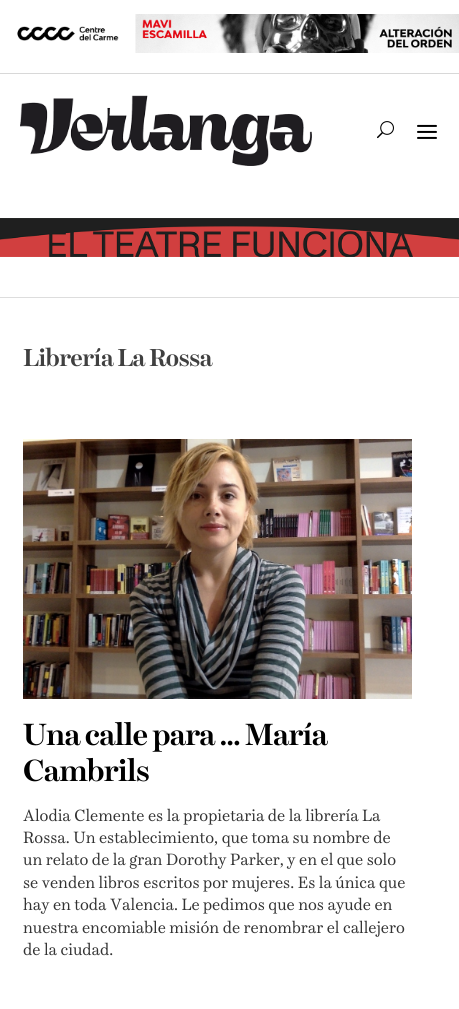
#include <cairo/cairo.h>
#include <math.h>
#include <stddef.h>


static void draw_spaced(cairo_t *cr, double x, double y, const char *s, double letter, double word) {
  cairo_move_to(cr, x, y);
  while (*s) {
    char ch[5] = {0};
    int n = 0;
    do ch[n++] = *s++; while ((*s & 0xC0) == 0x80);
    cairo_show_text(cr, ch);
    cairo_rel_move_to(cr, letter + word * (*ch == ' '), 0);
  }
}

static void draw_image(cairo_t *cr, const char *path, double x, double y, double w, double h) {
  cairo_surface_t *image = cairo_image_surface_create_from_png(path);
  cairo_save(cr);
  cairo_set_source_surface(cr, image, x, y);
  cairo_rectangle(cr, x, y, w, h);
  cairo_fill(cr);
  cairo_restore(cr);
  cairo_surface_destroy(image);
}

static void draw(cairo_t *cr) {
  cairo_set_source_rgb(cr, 1, 1, 1);
  cairo_paint(cr);
  cairo_set_source_rgb(cr, 216 / 255.0, 216 / 255.0, 216 / 255.0);
  cairo_rectangle(cr, 0, 73, 459, 1);
  cairo_fill(cr);
  draw_image(cr, "images/1.png", 17, 14, 442, 39);
  draw_image(cr, "images/2.png", 20, 95, 292, 71);
  draw_image(cr, "images/3.png", 377, 121, 17, 18);
  draw_image(cr, "images/4.png", 417, 124, 20, 15);
  cairo_set_source_rgb(cr, 221 / 255.0, 221 / 255.0, 221 / 255.0);
  cairo_rectangle(cr, 0, 297, 459, 1);
  cairo_fill(cr);
  draw_image(cr, "images/5.png", 0, 218, 459, 39);
  draw_image(cr, "images/6.png", 23, 439, 389, 260);
  cairo_select_font_face(cr, "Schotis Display", CAIRO_FONT_SLANT_NORMAL, CAIRO_FONT_WEIGHT_BOLD);
  cairo_set_font_size(cr, 24);
  cairo_set_source_rgb(cr, 64 / 255.0, 64 / 255.0, 64 / 255.0);
  draw_spaced(cr, 23, 366, "Librería La Rossa", -0.75, 0);
  cairo_set_font_size(cr, 30);
  cairo_set_source_rgb(cr, 0, 0, 0);
  draw_spaced(cr, 23, 745, "Una calle para … María", -1, 0);
  draw_spaced(cr, 23, 781, "Cambrils", -1, 0);
  cairo_select_font_face(cr, "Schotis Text", CAIRO_FONT_SLANT_NORMAL, CAIRO_FONT_WEIGHT_NORMAL);
  cairo_set_font_size(cr, 16);
  cairo_set_source_rgb(cr, 51 / 255.0, 51 / 255.0, 51 / 255.0);
  cairo_move_to(cr, 23, 821);
  cairo_show_text(cr, "Alodia Clemente es la propietaria de la librería La");
  cairo_move_to(cr, 23, 843);
  cairo_show_text(cr, "Rossa. Un establecimiento, que toma su nombre de");
  cairo_move_to(cr, 23, 865);
  cairo_show_text(cr, "un relato de la gran Dorothy Parker, y en el que solo");
  cairo_move_to(cr, 23, 888);
  cairo_show_text(cr, "se venden libros escritos por mujeres. Es la única que");
  cairo_move_to(cr, 23, 910);
  cairo_show_text(cr, "hay en toda Valencia. Le pedimos que nos ayude en");
  cairo_move_to(cr, 23, 933);
  cairo_show_text(cr, "nuestra encomiable misión de renombrar el callejero");
  cairo_move_to(cr, 23, 955);
  cairo_show_text(cr, "de la ciudad.");
}

int main(void) {
  cairo_surface_t *surface = cairo_image_surface_create(CAIRO_FORMAT_RGB24, 459, 1009);
  cairo_t *cr = cairo_create(surface);
  cairo_font_options_t *options = cairo_font_options_create();
  cairo_font_options_set_hint_metrics(options, CAIRO_HINT_METRICS_OFF);
  cairo_font_options_set_hint_style(options, CAIRO_HINT_STYLE_NONE);
  cairo_set_font_options(cr, options);
  cairo_set_miter_limit(cr, 4);
  draw(cr);
  cairo_surface_write_to_png(surface, "out.png");
  cairo_font_options_destroy(options);
  cairo_destroy(cr);
  cairo_surface_destroy(surface);
  return 0;
}
